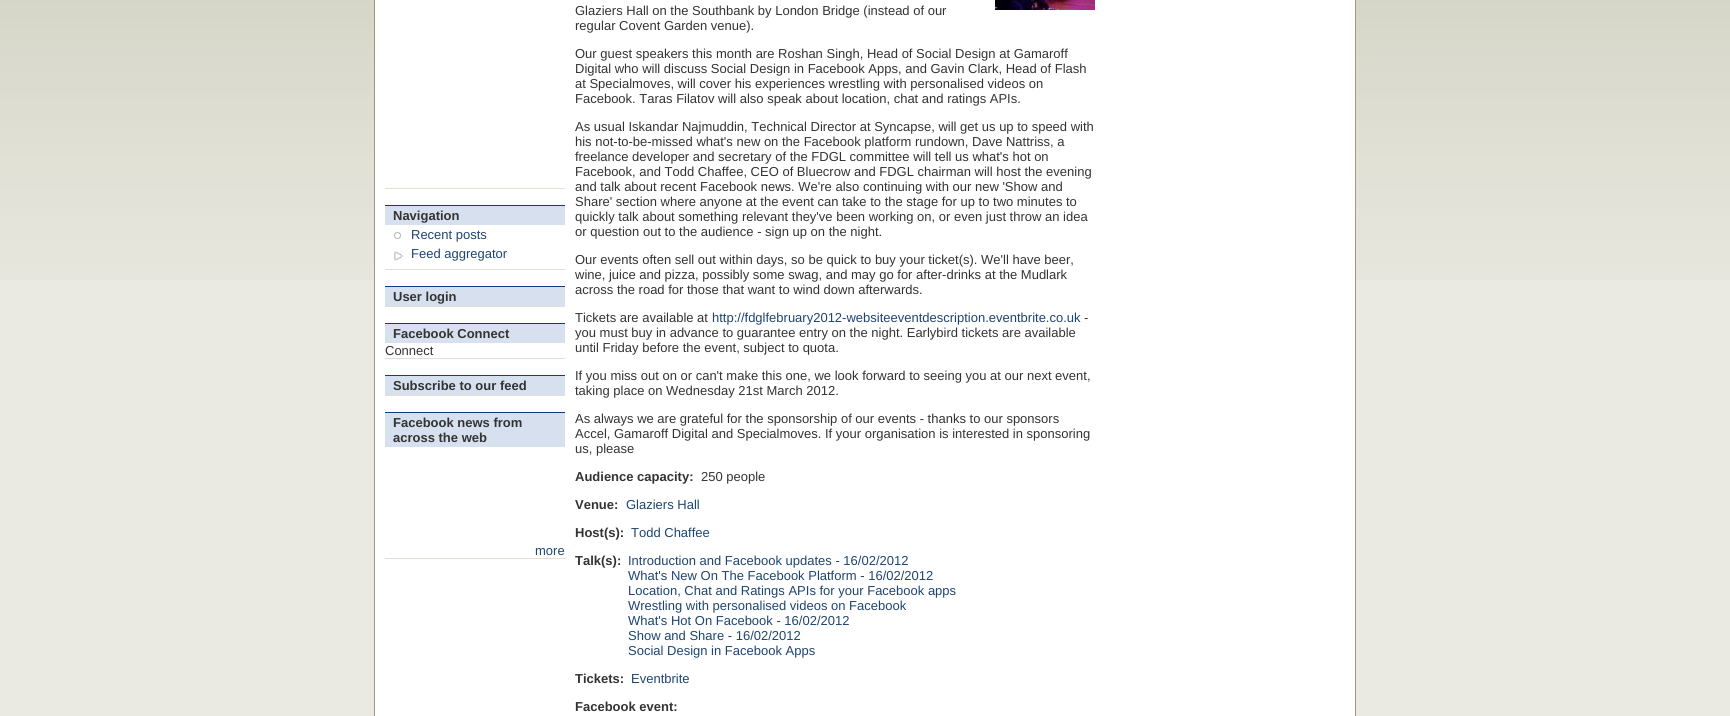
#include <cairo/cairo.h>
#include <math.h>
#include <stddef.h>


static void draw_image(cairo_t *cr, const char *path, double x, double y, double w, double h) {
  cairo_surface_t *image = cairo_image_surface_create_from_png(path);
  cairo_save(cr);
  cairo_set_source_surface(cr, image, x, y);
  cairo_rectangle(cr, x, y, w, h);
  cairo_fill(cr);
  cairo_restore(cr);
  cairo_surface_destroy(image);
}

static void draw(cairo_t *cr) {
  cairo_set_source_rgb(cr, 234 / 255.0, 234 / 255.0, 226 / 255.0);
  cairo_paint(cr);
  draw_image(cr, "images/1.png", 0, 0, 1730, 280);
  cairo_rectangle(cr, 374.5, -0.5, 981, 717);
  cairo_set_source_rgb(cr, 154 / 255.0, 154 / 255.0, 123 / 255.0);
  cairo_set_line_width(cr, 1);
  cairo_stroke(cr);
  cairo_set_source_rgb(cr, 1, 1, 1);
  cairo_rectangle(cr, 375, 0, 980, 716);
  cairo_fill(cr);
  cairo_set_source_rgb(cr, 224 / 255.0, 224 / 255.0, 213 / 255.0);
  cairo_rectangle(cr, 385, 188, 180, 1);
  cairo_fill(cr);
  cairo_rectangle(cr, 385, 269, 180, 1);
  cairo_fill(cr);
  cairo_set_source_rgb(cr, 215 / 255.0, 224 / 255.0, 238 / 255.0);
  cairo_rectangle(cr, 385, 206, 180, 19);
  cairo_fill(cr);
  cairo_set_source_rgb(cr, 19 / 255.0, 57 / 255.0, 135 / 255.0);
  cairo_rectangle(cr, 385, 205, 180, 1);
  cairo_fill(cr);
  draw_image(cr, "images/2.png", 394, 232, 7, 7);
  draw_image(cr, "images/3.png", 394, 251, 9, 10);
  cairo_set_source_rgb(cr, 224 / 255.0, 224 / 255.0, 213 / 255.0);
  cairo_rectangle(cr, 385, 306, 180, 1);
  cairo_fill(cr);
  cairo_set_source_rgb(cr, 215 / 255.0, 224 / 255.0, 238 / 255.0);
  cairo_rectangle(cr, 385, 287, 180, 19);
  cairo_fill(cr);
  cairo_set_source_rgb(cr, 19 / 255.0, 57 / 255.0, 135 / 255.0);
  cairo_rectangle(cr, 385, 286, 180, 1);
  cairo_fill(cr);
  cairo_set_source_rgb(cr, 224 / 255.0, 224 / 255.0, 213 / 255.0);
  cairo_rectangle(cr, 385, 358, 180, 1);
  cairo_fill(cr);
  cairo_set_source_rgb(cr, 215 / 255.0, 224 / 255.0, 238 / 255.0);
  cairo_rectangle(cr, 385, 324, 180, 19);
  cairo_fill(cr);
  cairo_set_source_rgb(cr, 19 / 255.0, 57 / 255.0, 135 / 255.0);
  cairo_rectangle(cr, 385, 323, 180, 1);
  cairo_fill(cr);
  cairo_set_source_rgb(cr, 224 / 255.0, 224 / 255.0, 213 / 255.0);
  cairo_rectangle(cr, 385, 395, 180, 1);
  cairo_fill(cr);
  cairo_set_source_rgb(cr, 215 / 255.0, 224 / 255.0, 238 / 255.0);
  cairo_rectangle(cr, 385, 376, 180, 19);
  cairo_fill(cr);
  cairo_set_source_rgb(cr, 19 / 255.0, 57 / 255.0, 135 / 255.0);
  cairo_rectangle(cr, 385, 375, 180, 1);
  cairo_fill(cr);
  cairo_set_source_rgb(cr, 224 / 255.0, 224 / 255.0, 213 / 255.0);
  cairo_rectangle(cr, 385, 558, 180, 1);
  cairo_fill(cr);
  cairo_set_source_rgb(cr, 215 / 255.0, 224 / 255.0, 238 / 255.0);
  cairo_rectangle(cr, 385, 413, 180, 34);
  cairo_fill(cr);
  cairo_set_source_rgb(cr, 19 / 255.0, 57 / 255.0, 135 / 255.0);
  cairo_rectangle(cr, 385, 412, 180, 1);
  cairo_fill(cr);
  draw_image(cr, "images/4.png", 995, 0, 100, 10);
  cairo_select_font_face(cr, "Liberation Sans", CAIRO_FONT_SLANT_NORMAL, CAIRO_FONT_WEIGHT_BOLD);
  cairo_set_font_size(cr, 13);
  cairo_set_source_rgb(cr, 51 / 255.0, 51 / 255.0, 51 / 255.0);
  cairo_move_to(cr, 393, 220);
  cairo_show_text(cr, "Navigation");
  cairo_select_font_face(cr, "Liberation Sans", CAIRO_FONT_SLANT_NORMAL, CAIRO_FONT_WEIGHT_NORMAL);
  cairo_set_source_rgb(cr, 30 / 255.0, 68 / 255.0, 112 / 255.0);
  cairo_move_to(cr, 411, 239);
  cairo_show_text(cr, "Recent posts");
  cairo_move_to(cr, 411, 258);
  cairo_show_text(cr, "Feed aggregator");
  cairo_select_font_face(cr, "Liberation Sans", CAIRO_FONT_SLANT_NORMAL, CAIRO_FONT_WEIGHT_BOLD);
  cairo_set_source_rgb(cr, 51 / 255.0, 51 / 255.0, 51 / 255.0);
  cairo_move_to(cr, 393, 301);
  cairo_show_text(cr, "User login");
  cairo_move_to(cr, 393, 338);
  cairo_show_text(cr, "Facebook Connect");
  cairo_select_font_face(cr, "Liberation Sans", CAIRO_FONT_SLANT_NORMAL, CAIRO_FONT_WEIGHT_NORMAL);
  cairo_move_to(cr, 385, 355);
  cairo_show_text(cr, "Connect");
  cairo_select_font_face(cr, "Liberation Sans", CAIRO_FONT_SLANT_NORMAL, CAIRO_FONT_WEIGHT_BOLD);
  cairo_move_to(cr, 393, 390);
  cairo_show_text(cr, "Subscribe to our feed");
  cairo_move_to(cr, 393, 427);
  cairo_show_text(cr, "Facebook news from");
  cairo_move_to(cr, 393, 442);
  cairo_show_text(cr, "across the web");
  cairo_select_font_face(cr, "Liberation Sans", CAIRO_FONT_SLANT_NORMAL, CAIRO_FONT_WEIGHT_NORMAL);
  cairo_set_source_rgb(cr, 30 / 255.0, 68 / 255.0, 112 / 255.0);
  cairo_move_to(cr, 535, 555);
  cairo_show_text(cr, "more");
  cairo_set_source_rgb(cr, 51 / 255.0, 51 / 255.0, 51 / 255.0);
  cairo_move_to(cr, 575, 15);
  cairo_show_text(cr, "Glaziers Hall on the Southbank by London Bridge (instead of our");
  cairo_move_to(cr, 575, 30);
  cairo_show_text(cr, "regular Covent Garden venue).");
  cairo_move_to(cr, 575, 58);
  cairo_show_text(cr, "Our guest speakers this month are Roshan Singh, Head of Social Design at Gamaroff");
  cairo_move_to(cr, 575, 73);
  cairo_show_text(cr, "Digital who will discuss Social Design in Facebook Apps, and Gavin Clark, Head of Flash");
  cairo_move_to(cr, 575, 88);
  cairo_show_text(cr, "at Specialmoves, will cover his experiences wrestling with personalised videos on");
  cairo_move_to(cr, 575, 103);
  cairo_show_text(cr, "Facebook. Taras Filatov will also speak about location, chat and ratings APIs.");
  cairo_move_to(cr, 575, 131);
  cairo_show_text(cr, "As usual Iskandar Najmuddin, Technical Director at Syncapse, will get us up to speed with");
  cairo_move_to(cr, 575, 146);
  cairo_show_text(cr, "his not-to-be-missed what's new on the Facebook platform rundown, Dave Nattriss, a");
  cairo_move_to(cr, 575, 161);
  cairo_show_text(cr, "freelance developer and secretary of the FDGL committee will tell us what's hot on");
  cairo_move_to(cr, 575, 176);
  cairo_show_text(cr, "Facebook, and Todd Chaffee, CEO of Bluecrow and FDGL chairman will host the evening");
  cairo_move_to(cr, 575, 191);
  cairo_show_text(cr, "and talk about recent Facebook news. We're also continuing with our new 'Show and");
  cairo_move_to(cr, 575, 206);
  cairo_show_text(cr, "Share' section where anyone at the event can take to the stage for up to two minutes to");
  cairo_move_to(cr, 575, 221);
  cairo_show_text(cr, "quickly talk about something relevant they've been working on, or even just throw an idea");
  cairo_move_to(cr, 575, 236);
  cairo_show_text(cr, "or question out to the audience - sign up on the night.");
  cairo_move_to(cr, 575, 264);
  cairo_show_text(cr, "Our events often sell out within days, so be quick to buy your ticket(s). We'll have beer,");
  cairo_move_to(cr, 575, 279);
  cairo_show_text(cr, "wine, juice and pizza, possibly some swag, and may go for after-drinks at the Mudlark");
  cairo_move_to(cr, 575, 294);
  cairo_show_text(cr, "across the road for those that want to wind down afterwards.");
  cairo_move_to(cr, 575, 322);
  cairo_show_text(cr, "Tickets are available at");
  cairo_set_source_rgb(cr, 30 / 255.0, 68 / 255.0, 112 / 255.0);
  cairo_move_to(cr, 712, 322);
  cairo_show_text(cr, "http://fdglfebruary2012-websiteeventdescription.eventbrite.co.uk");
  cairo_set_source_rgb(cr, 51 / 255.0, 51 / 255.0, 51 / 255.0);
  cairo_move_to(cr, 1084, 322);
  cairo_show_text(cr, "-");
  cairo_move_to(cr, 575, 337);
  cairo_show_text(cr, "you must buy in advance to guarantee entry on the night. Earlybird tickets are available");
  cairo_move_to(cr, 575, 352);
  cairo_show_text(cr, "until Friday before the event, subject to quota.");
  cairo_move_to(cr, 575, 380);
  cairo_show_text(cr, "If you miss out on or can't make this one, we look forward to seeing you at our next event,");
  cairo_move_to(cr, 575, 395);
  cairo_show_text(cr, "taking place on Wednesday 21st March 2012.");
  cairo_move_to(cr, 575, 423);
  cairo_show_text(cr, "As always we are grateful for the sponsorship of our events - thanks to our sponsors");
  cairo_move_to(cr, 575, 438);
  cairo_show_text(cr, "Accel, Gamaroff Digital and Specialmoves. If your organisation is interested in sponsoring");
  cairo_move_to(cr, 575, 453);
  cairo_show_text(cr, "us, please");
  cairo_select_font_face(cr, "Liberation Sans", CAIRO_FONT_SLANT_NORMAL, CAIRO_FONT_WEIGHT_BOLD);
  cairo_move_to(cr, 575, 481);
  cairo_show_text(cr, "Audience capacity:");
  cairo_select_font_face(cr, "Liberation Sans", CAIRO_FONT_SLANT_NORMAL, CAIRO_FONT_WEIGHT_NORMAL);
  cairo_move_to(cr, 701, 481);
  cairo_show_text(cr, "250 people");
  cairo_select_font_face(cr, "Liberation Sans", CAIRO_FONT_SLANT_NORMAL, CAIRO_FONT_WEIGHT_BOLD);
  cairo_move_to(cr, 575, 509);
  cairo_show_text(cr, "Venue:");
  cairo_select_font_face(cr, "Liberation Sans", CAIRO_FONT_SLANT_NORMAL, CAIRO_FONT_WEIGHT_NORMAL);
  cairo_set_source_rgb(cr, 30 / 255.0, 68 / 255.0, 112 / 255.0);
  cairo_move_to(cr, 626, 509);
  cairo_show_text(cr, "Glaziers Hall");
  cairo_select_font_face(cr, "Liberation Sans", CAIRO_FONT_SLANT_NORMAL, CAIRO_FONT_WEIGHT_BOLD);
  cairo_set_source_rgb(cr, 51 / 255.0, 51 / 255.0, 51 / 255.0);
  cairo_move_to(cr, 575, 537);
  cairo_show_text(cr, "Host(s):");
  cairo_select_font_face(cr, "Liberation Sans", CAIRO_FONT_SLANT_NORMAL, CAIRO_FONT_WEIGHT_NORMAL);
  cairo_set_source_rgb(cr, 30 / 255.0, 68 / 255.0, 112 / 255.0);
  cairo_move_to(cr, 631, 537);
  cairo_show_text(cr, "Todd Chaffee");
  cairo_select_font_face(cr, "Liberation Sans", CAIRO_FONT_SLANT_NORMAL, CAIRO_FONT_WEIGHT_BOLD);
  cairo_set_source_rgb(cr, 51 / 255.0, 51 / 255.0, 51 / 255.0);
  cairo_move_to(cr, 575, 565);
  cairo_show_text(cr, "Talk(s):");
  cairo_select_font_face(cr, "Liberation Sans", CAIRO_FONT_SLANT_NORMAL, CAIRO_FONT_WEIGHT_NORMAL);
  cairo_set_source_rgb(cr, 30 / 255.0, 68 / 255.0, 112 / 255.0);
  cairo_move_to(cr, 628, 565);
  cairo_show_text(cr, "Introduction and Facebook updates - 16/02/2012");
  cairo_move_to(cr, 628, 580);
  cairo_show_text(cr, "What's New On The Facebook Platform - 16/02/2012");
  cairo_move_to(cr, 628, 595);
  cairo_show_text(cr, "Location, Chat and Ratings APIs for your Facebook apps");
  cairo_move_to(cr, 628, 610);
  cairo_show_text(cr, "Wrestling with personalised videos on Facebook");
  cairo_move_to(cr, 628, 625);
  cairo_show_text(cr, "What's Hot On Facebook - 16/02/2012");
  cairo_move_to(cr, 628, 640);
  cairo_show_text(cr, "Show and Share - 16/02/2012");
  cairo_move_to(cr, 628, 655);
  cairo_show_text(cr, "Social Design in Facebook Apps");
  cairo_select_font_face(cr, "Liberation Sans", CAIRO_FONT_SLANT_NORMAL, CAIRO_FONT_WEIGHT_BOLD);
  cairo_set_source_rgb(cr, 51 / 255.0, 51 / 255.0, 51 / 255.0);
  cairo_move_to(cr, 575, 683);
  cairo_show_text(cr, "Tickets:");
  cairo_select_font_face(cr, "Liberation Sans", CAIRO_FONT_SLANT_NORMAL, CAIRO_FONT_WEIGHT_NORMAL);
  cairo_set_source_rgb(cr, 30 / 255.0, 68 / 255.0, 112 / 255.0);
  cairo_move_to(cr, 631, 683);
  cairo_show_text(cr, "Eventbrite");
  cairo_select_font_face(cr, "Liberation Sans", CAIRO_FONT_SLANT_NORMAL, CAIRO_FONT_WEIGHT_BOLD);
  cairo_set_source_rgb(cr, 51 / 255.0, 51 / 255.0, 51 / 255.0);
  cairo_move_to(cr, 575, 711);
  cairo_show_text(cr, "Facebook event:");
}

int main(void) {
  cairo_surface_t *surface = cairo_image_surface_create(CAIRO_FORMAT_RGB24, 1730, 716);
  cairo_t *cr = cairo_create(surface);
  cairo_font_options_t *options = cairo_font_options_create();
  cairo_font_options_set_hint_metrics(options, CAIRO_HINT_METRICS_OFF);
  cairo_font_options_set_hint_style(options, CAIRO_HINT_STYLE_NONE);
  cairo_set_font_options(cr, options);
  cairo_set_miter_limit(cr, 4);
  draw(cr);
  cairo_surface_write_to_png(surface, "out.png");
  cairo_font_options_destroy(options);
  cairo_destroy(cr);
  cairo_surface_destroy(surface);
  return 0;
}
